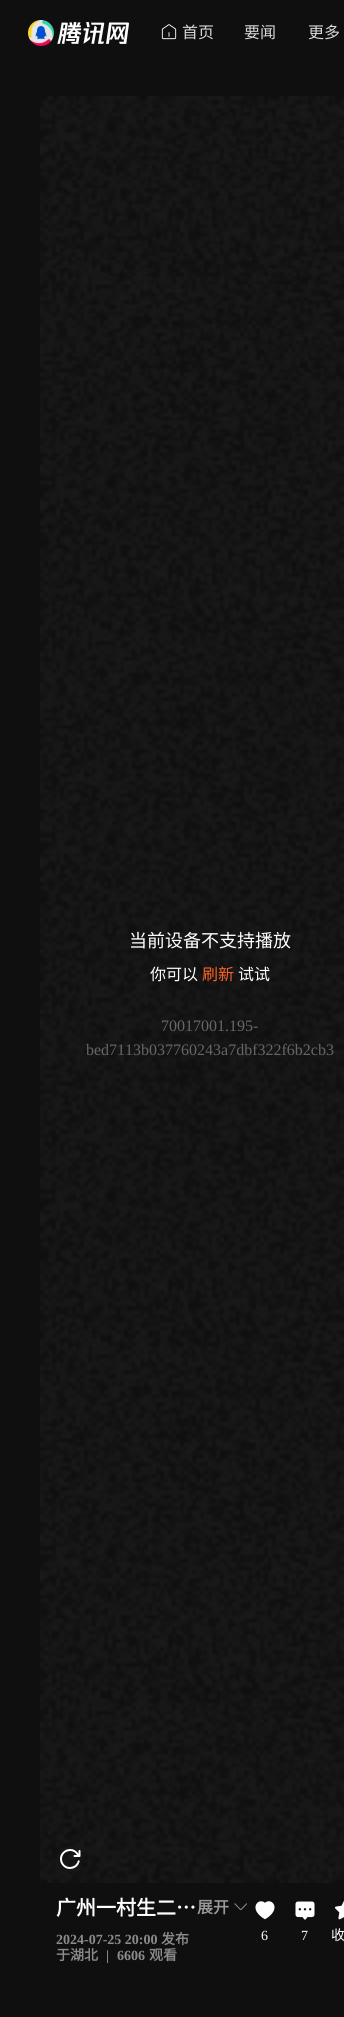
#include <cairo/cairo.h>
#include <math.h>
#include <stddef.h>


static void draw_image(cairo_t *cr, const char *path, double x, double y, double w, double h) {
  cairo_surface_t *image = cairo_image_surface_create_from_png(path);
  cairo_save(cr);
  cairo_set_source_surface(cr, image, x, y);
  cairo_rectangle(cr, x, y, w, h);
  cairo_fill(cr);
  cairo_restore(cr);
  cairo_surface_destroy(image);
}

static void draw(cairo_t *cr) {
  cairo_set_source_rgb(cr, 15 / 255.0, 15 / 255.0, 15 / 255.0);
  cairo_paint(cr);
  draw_image(cr, "images/1.png", 28, 20, 101, 26);
  draw_image(cr, "images/2.png", 161, 24, 16, 16);
  draw_image(cr, "images/3.png", 40, 96, 304, 1787);
  draw_image(cr, "images/4.png", 234, 1903, 13, 7);
  draw_image(cr, "images/5.png", 255, 1901, 20, 19);
  draw_image(cr, "images/6.png", 295, 1901, 20, 19);
  draw_image(cr, "images/7.png", 335, 1900, 9, 20);
  cairo_select_font_face(cr, "Noto Sans CJK SC", CAIRO_FONT_SLANT_NORMAL, CAIRO_FONT_WEIGHT_NORMAL);
  cairo_set_font_size(cr, 16);
  cairo_set_source_rgb(cr, 217 / 255.0, 217 / 255.0, 217 / 255.0);
  cairo_move_to(cr, 182, 38);
  cairo_show_text(cr, "首页");
  cairo_move_to(cr, 244, 38);
  cairo_show_text(cr, "要闻");
  cairo_move_to(cr, 308, 38);
  cairo_show_text(cr, "更多");
  cairo_set_font_size(cr, 18);
  cairo_set_source_rgb(cr, 1, 1, 1);
  cairo_move_to(cr, 129, 947);
  cairo_show_text(cr, "当前设备不支持播放");
  cairo_set_font_size(cr, 16);
  cairo_move_to(cr, 150, 980);
  cairo_show_text(cr, "你可以");
  cairo_set_source_rgb(cr, 252 / 255.0, 101 / 255.0, 38 / 255.0);
  cairo_move_to(cr, 202, 980);
  cairo_show_text(cr, "刷新");
  cairo_set_source_rgb(cr, 1, 1, 1);
  cairo_move_to(cr, 238, 980);
  cairo_show_text(cr, "试试");
  cairo_select_font_face(cr, "Liberation Serif", CAIRO_FONT_SLANT_NORMAL, CAIRO_FONT_WEIGHT_NORMAL);
  cairo_set_source_rgb(cr, 102 / 255.0, 102 / 255.0, 102 / 255.0);
  cairo_move_to(cr, 161, 1031);
  cairo_show_text(cr, "70017001.195-");
  cairo_move_to(cr, 86, 1055);
  cairo_show_text(cr, "bed7113b037760243a7dbf322f6b2cb3");
  cairo_select_font_face(cr, "Noto Sans CJK SC", CAIRO_FONT_SLANT_NORMAL, CAIRO_FONT_WEIGHT_BOLD);
  cairo_set_font_size(cr, 20);
  cairo_set_source_rgb(cr, 1, 1, 1);
  cairo_move_to(cr, 56, 1915);
  cairo_show_text(cr, "广州一村生二…");
  cairo_set_font_size(cr, 16);
  cairo_set_source_rgb(cr, 153 / 255.0, 153 / 255.0, 153 / 255.0);
  cairo_move_to(cr, 197, 1913);
  cairo_show_text(cr, "展开");
  cairo_select_font_face(cr, "Liberation Serif", CAIRO_FONT_SLANT_NORMAL, CAIRO_FONT_WEIGHT_BOLD);
  cairo_set_font_size(cr, 14);
  cairo_set_source_rgb(cr, 139 / 255.0, 139 / 255.0, 139 / 255.0);
  cairo_move_to(cr, 56, 1944);
  cairo_show_text(cr, "2024-07-25 20:00");
  cairo_select_font_face(cr, "Noto Sans CJK SC", CAIRO_FONT_SLANT_NORMAL, CAIRO_FONT_WEIGHT_BOLD);
  cairo_move_to(cr, 161, 1944);
  cairo_show_text(cr, "发布");
  cairo_move_to(cr, 56, 1960);
  cairo_show_text(cr, "于湖北");
  cairo_select_font_face(cr, "Liberation Serif", CAIRO_FONT_SLANT_NORMAL, CAIRO_FONT_WEIGHT_BOLD);
  cairo_move_to(cr, 106, 1960);
  cairo_show_text(cr, "|");
  cairo_move_to(cr, 117, 1960);
  cairo_show_text(cr, "6606");
  cairo_select_font_face(cr, "Noto Sans CJK SC", CAIRO_FONT_SLANT_NORMAL, CAIRO_FONT_WEIGHT_BOLD);
  cairo_move_to(cr, 149, 1960);
  cairo_show_text(cr, "观看");
  cairo_select_font_face(cr, "Liberation Serif", CAIRO_FONT_SLANT_NORMAL, CAIRO_FONT_WEIGHT_NORMAL);
  cairo_set_source_rgb(cr, 1, 1, 1);
  cairo_move_to(cr, 261, 1940);
  cairo_show_text(cr, "6");
  cairo_move_to(cr, 301, 1940);
  cairo_show_text(cr, "7");
  cairo_select_font_face(cr, "Noto Sans CJK SC", CAIRO_FONT_SLANT_NORMAL, CAIRO_FONT_WEIGHT_NORMAL);
  cairo_move_to(cr, 331, 1940);
  cairo_show_text(cr, "收");
}

int main(void) {
  cairo_surface_t *surface = cairo_image_surface_create(CAIRO_FORMAT_RGB24, 344, 2017);
  cairo_t *cr = cairo_create(surface);
  cairo_font_options_t *options = cairo_font_options_create();
  cairo_font_options_set_hint_metrics(options, CAIRO_HINT_METRICS_OFF);
  cairo_font_options_set_hint_style(options, CAIRO_HINT_STYLE_NONE);
  cairo_set_font_options(cr, options);
  cairo_set_miter_limit(cr, 4);
  draw(cr);
  cairo_surface_write_to_png(surface, "out.png");
  cairo_font_options_destroy(options);
  cairo_destroy(cr);
  cairo_surface_destroy(surface);
  return 0;
}
